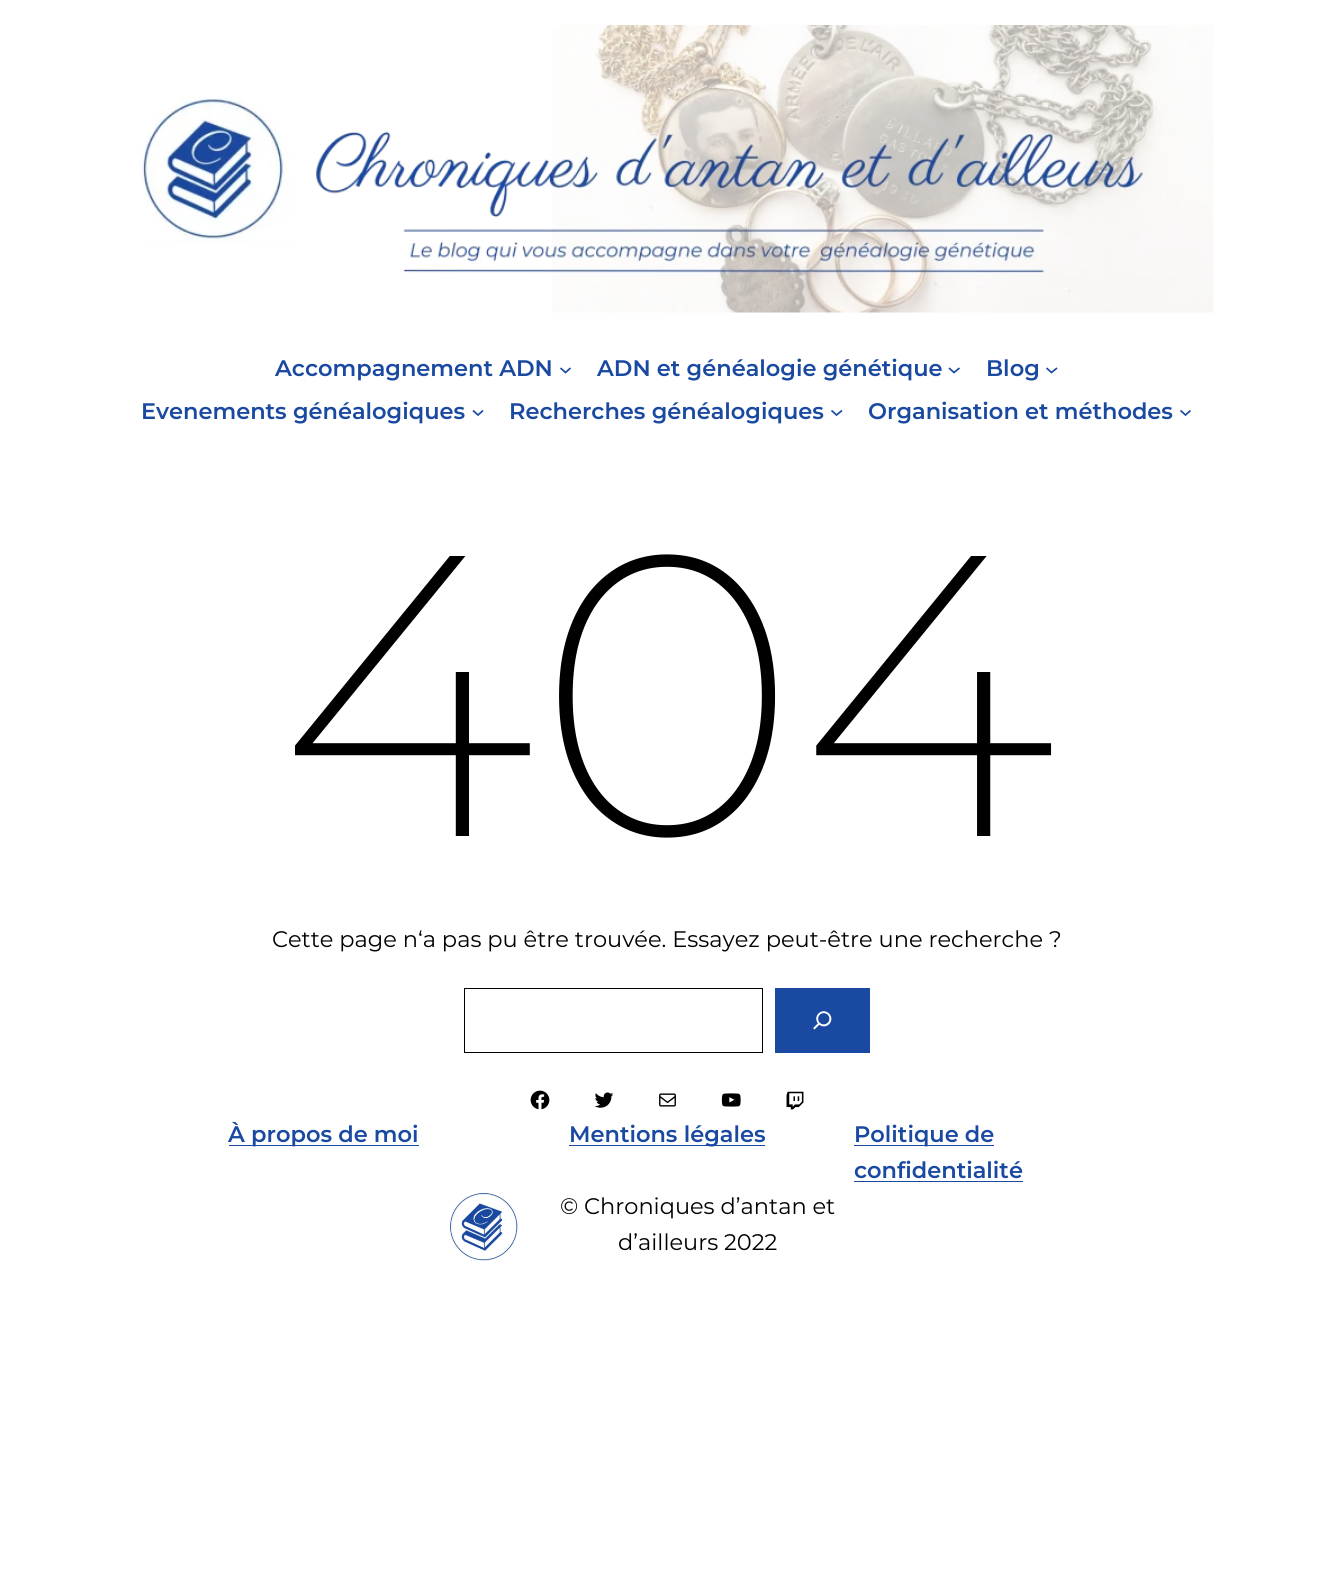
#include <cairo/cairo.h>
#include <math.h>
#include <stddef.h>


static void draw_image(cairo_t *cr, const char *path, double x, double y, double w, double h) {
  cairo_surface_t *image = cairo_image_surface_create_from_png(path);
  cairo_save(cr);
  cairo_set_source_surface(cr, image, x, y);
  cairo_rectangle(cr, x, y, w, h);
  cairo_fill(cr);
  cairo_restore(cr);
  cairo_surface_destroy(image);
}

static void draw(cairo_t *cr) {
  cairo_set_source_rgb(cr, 1, 1, 1);
  cairo_paint(cr);
  draw_image(cr, "images/1.png", 137, 25, 1077, 288);
  cairo_new_path(cr);
  cairo_move_to(cr, 560.5, 368);
  cairo_line_to(cr, 565.5, 372.5);
  cairo_line_to(cr, 570.5, 368);
  cairo_set_source_rgb(cr, 26 / 255.0, 73 / 255.0, 161 / 255.0);
  cairo_set_line_width(cr, 1.7);
  cairo_stroke(cr);
  cairo_new_path(cr);
  cairo_move_to(cr, 949, 368);
  cairo_line_to(cr, 954, 372.5);
  cairo_line_to(cr, 959.5, 368);
  cairo_stroke(cr);
  cairo_new_path(cr);
  cairo_move_to(cr, 1046.5, 368);
  cairo_line_to(cr, 1051.5, 372.5);
  cairo_line_to(cr, 1057, 368);
  cairo_stroke(cr);
  cairo_new_path(cr);
  cairo_move_to(cr, 473, 410.5);
  cairo_line_to(cr, 478, 415);
  cairo_line_to(cr, 483, 410.5);
  cairo_stroke(cr);
  cairo_new_path(cr);
  cairo_move_to(cr, 831.5, 410.5);
  cairo_line_to(cr, 836.5, 415);
  cairo_line_to(cr, 842, 410.5);
  cairo_stroke(cr);
  cairo_new_path(cr);
  cairo_move_to(cr, 1180.5, 410.5);
  cairo_line_to(cr, 1185.5, 415);
  cairo_line_to(cr, 1190.5, 410.5);
  cairo_stroke(cr);
  cairo_rectangle(cr, 464.5, 988.5, 298, 64);
  cairo_set_source_rgb(cr, 0, 0, 0);
  cairo_set_line_width(cr, 1);
  cairo_stroke(cr);
  cairo_set_source_rgb(cr, 26 / 255.0, 73 / 255.0, 161 / 255.0);
  cairo_rectangle(cr, 775, 988, 95, 65);
  cairo_fill(cr);
  draw_image(cr, "images/2.png", 813, 1011, 19, 19);
  draw_image(cr, "images/3.png", 530, 1090, 20, 20);
  draw_image(cr, "images/4.png", 594, 1092, 20, 16);
  draw_image(cr, "images/5.png", 659, 1093, 17, 14);
  draw_image(cr, "images/6.png", 721, 1093, 20, 14);
  draw_image(cr, "images/7.png", 786, 1091, 18, 19);
  cairo_rectangle(cr, 229, 1145, 190, 1);
  cairo_fill(cr);
  cairo_rectangle(cr, 569, 1145, 196, 1);
  cairo_fill(cr);
  cairo_rectangle(cr, 854, 1145, 140, 1);
  cairo_fill(cr);
  cairo_rectangle(cr, 854, 1181, 169, 1);
  cairo_fill(cr);
  draw_image(cr, "images/8.png", 450, 1192, 68, 69);
  cairo_select_font_face(cr, "Montserrat SemiBold", CAIRO_FONT_SLANT_NORMAL, CAIRO_FONT_WEIGHT_NORMAL);
  cairo_set_font_size(cr, 22.5);
  cairo_move_to(cr, 275, 376);
  cairo_show_text(cr, "Accompagnement ADN");
  cairo_move_to(cr, 597, 376);
  cairo_show_text(cr, "ADN et généalogie génétique");
  cairo_move_to(cr, 986, 376);
  cairo_show_text(cr, "Blog");
  cairo_move_to(cr, 141, 419);
  cairo_show_text(cr, "Evenements généalogiques");
  cairo_move_to(cr, 509, 419);
  cairo_show_text(cr, "Recherches généalogiques");
  cairo_move_to(cr, 868, 419);
  cairo_show_text(cr, "Organisation et méthodes");
  cairo_select_font_face(cr, "Montserrat ExtraLight", CAIRO_FONT_SLANT_NORMAL, CAIRO_FONT_WEIGHT_NORMAL);
  cairo_set_font_size(cr, 400);
  cairo_set_source_rgb(cr, 0, 0, 0);
  cairo_move_to(cr, 277, 836);
  cairo_show_text(cr, "404");
  cairo_select_font_face(cr, "Montserrat", CAIRO_FONT_SLANT_NORMAL, CAIRO_FONT_WEIGHT_NORMAL);
  cairo_set_font_size(cr, 22.5);
  cairo_move_to(cr, 272, 947);
  cairo_show_text(cr, "Cette page n‘a pas pu être trouvée. Essayez peut-être une recherche ?");
  cairo_select_font_face(cr, "Montserrat SemiBold", CAIRO_FONT_SLANT_NORMAL, CAIRO_FONT_WEIGHT_NORMAL);
  cairo_set_source_rgb(cr, 26 / 255.0, 73 / 255.0, 161 / 255.0);
  cairo_move_to(cr, 228, 1142);
  cairo_show_text(cr, "À propos de moi");
  cairo_move_to(cr, 569, 1142);
  cairo_show_text(cr, "Mentions légales");
  cairo_move_to(cr, 854, 1142);
  cairo_show_text(cr, "Politique de");
  cairo_move_to(cr, 854, 1178);
  cairo_show_text(cr, "confidentialité");
  cairo_select_font_face(cr, "Montserrat", CAIRO_FONT_SLANT_NORMAL, CAIRO_FONT_WEIGHT_NORMAL);
  cairo_set_source_rgb(cr, 0, 0, 0);
  cairo_move_to(cr, 560, 1214);
  cairo_show_text(cr, "© Chroniques d’antan et");
  cairo_move_to(cr, 618, 1250);
  cairo_show_text(cr, "d’ailleurs 2022");
}

int main(void) {
  cairo_surface_t *surface = cairo_image_surface_create(CAIRO_FORMAT_RGB24, 1333, 1573);
  cairo_t *cr = cairo_create(surface);
  cairo_font_options_t *options = cairo_font_options_create();
  cairo_font_options_set_hint_metrics(options, CAIRO_HINT_METRICS_OFF);
  cairo_font_options_set_hint_style(options, CAIRO_HINT_STYLE_NONE);
  cairo_set_font_options(cr, options);
  cairo_set_miter_limit(cr, 4);
  draw(cr);
  cairo_surface_write_to_png(surface, "out.png");
  cairo_font_options_destroy(options);
  cairo_destroy(cr);
  cairo_surface_destroy(surface);
  return 0;
}
